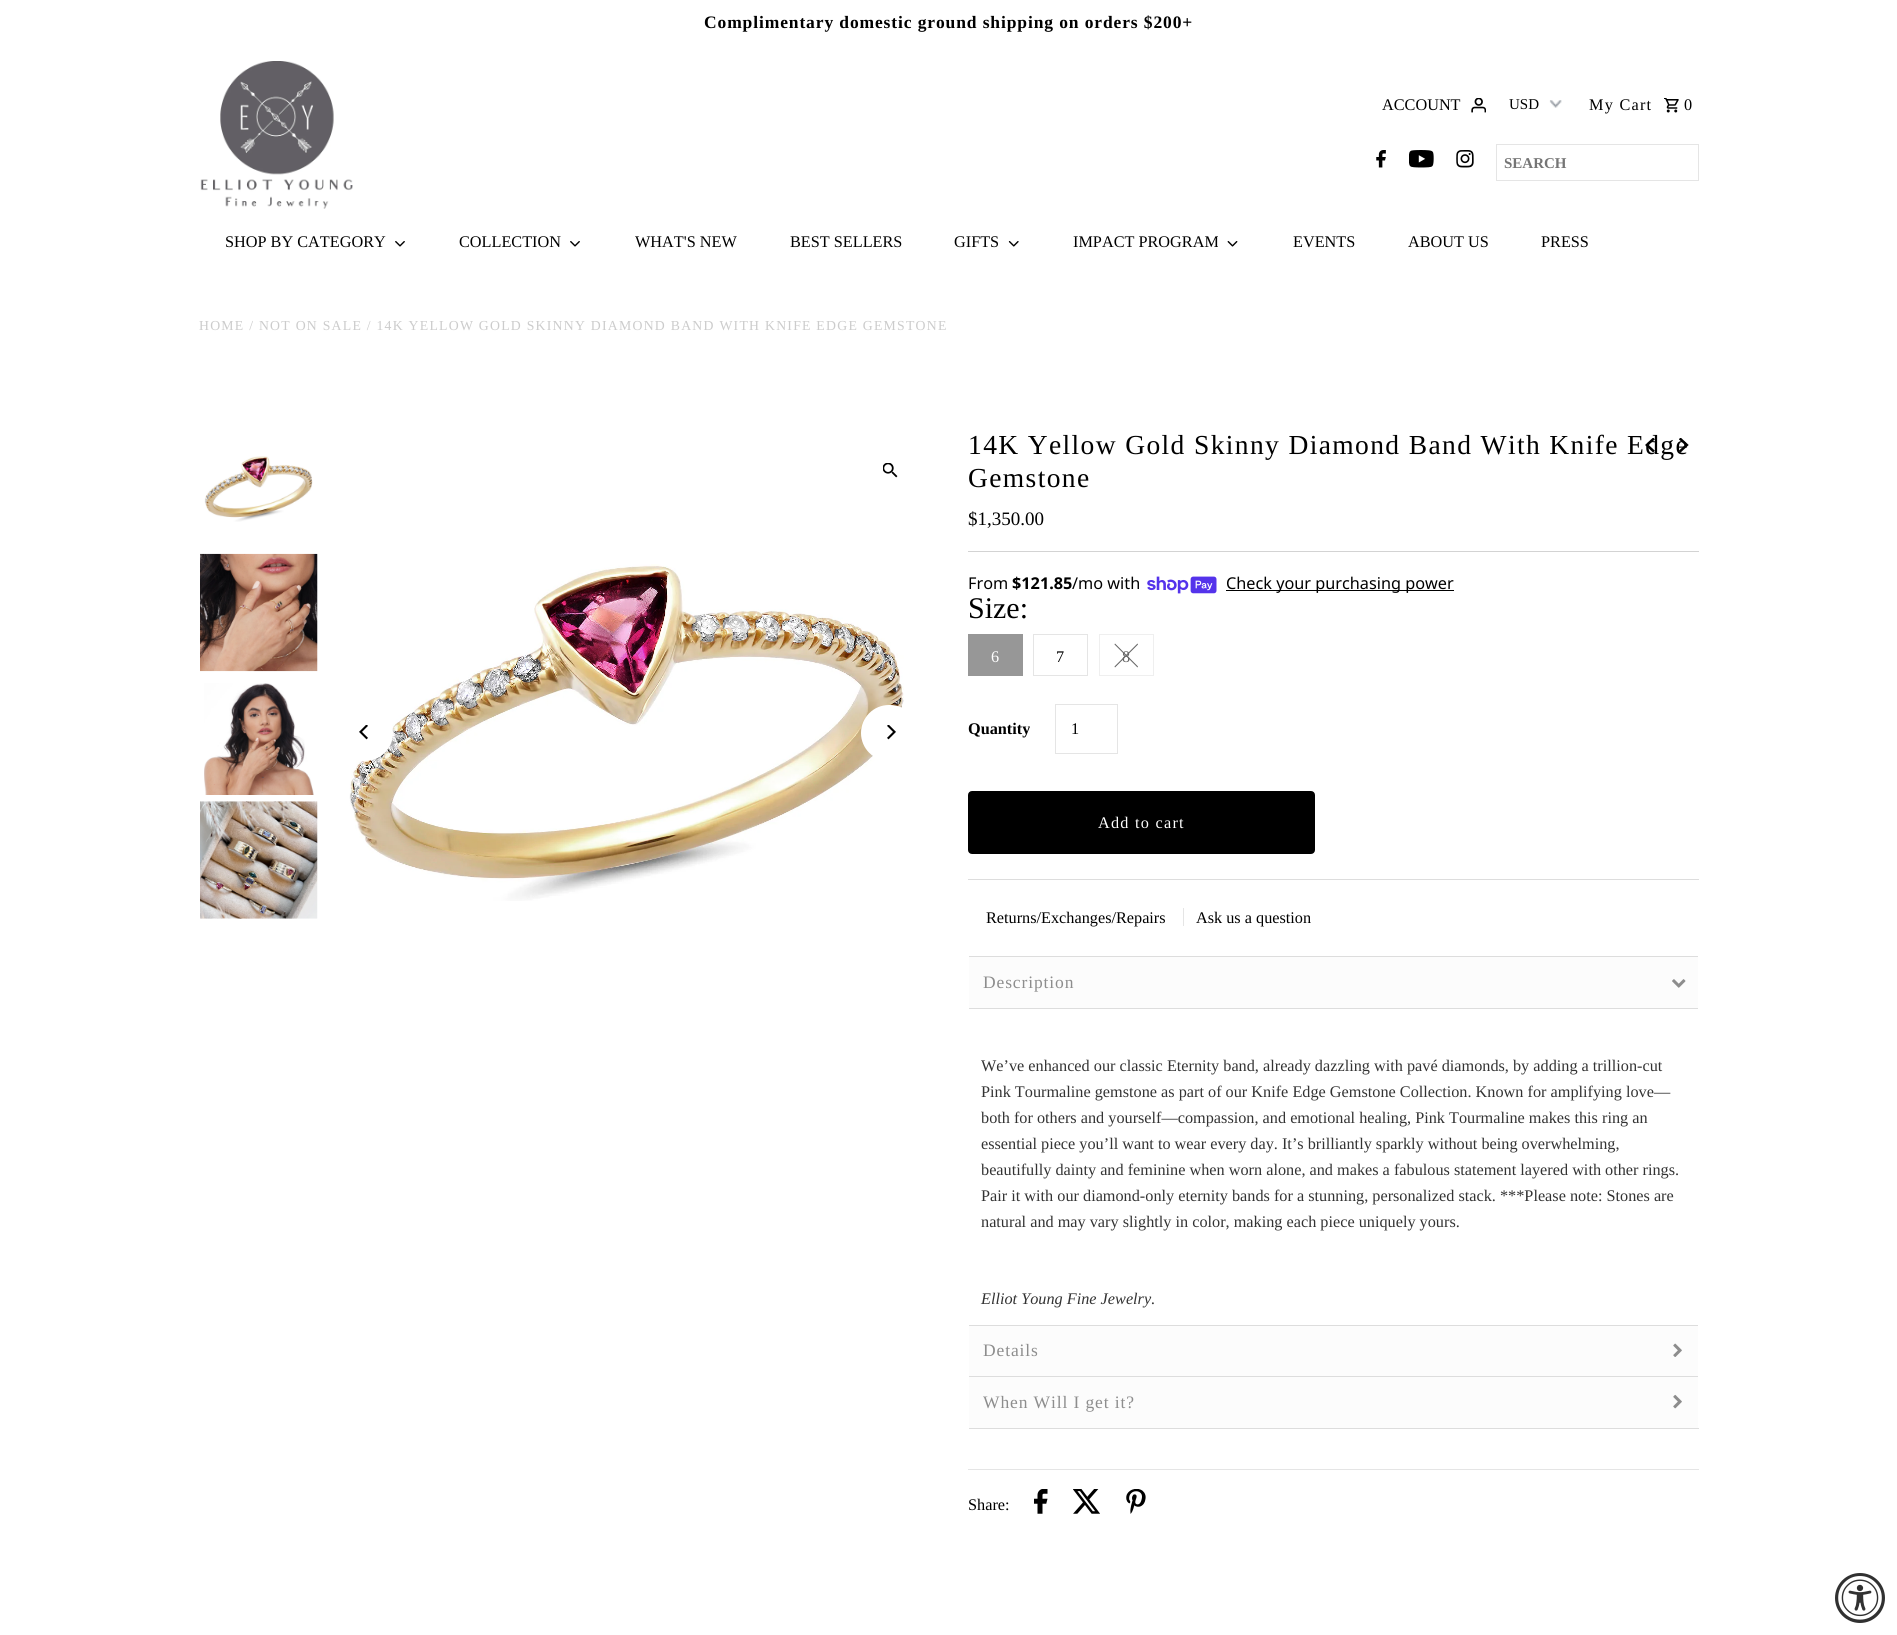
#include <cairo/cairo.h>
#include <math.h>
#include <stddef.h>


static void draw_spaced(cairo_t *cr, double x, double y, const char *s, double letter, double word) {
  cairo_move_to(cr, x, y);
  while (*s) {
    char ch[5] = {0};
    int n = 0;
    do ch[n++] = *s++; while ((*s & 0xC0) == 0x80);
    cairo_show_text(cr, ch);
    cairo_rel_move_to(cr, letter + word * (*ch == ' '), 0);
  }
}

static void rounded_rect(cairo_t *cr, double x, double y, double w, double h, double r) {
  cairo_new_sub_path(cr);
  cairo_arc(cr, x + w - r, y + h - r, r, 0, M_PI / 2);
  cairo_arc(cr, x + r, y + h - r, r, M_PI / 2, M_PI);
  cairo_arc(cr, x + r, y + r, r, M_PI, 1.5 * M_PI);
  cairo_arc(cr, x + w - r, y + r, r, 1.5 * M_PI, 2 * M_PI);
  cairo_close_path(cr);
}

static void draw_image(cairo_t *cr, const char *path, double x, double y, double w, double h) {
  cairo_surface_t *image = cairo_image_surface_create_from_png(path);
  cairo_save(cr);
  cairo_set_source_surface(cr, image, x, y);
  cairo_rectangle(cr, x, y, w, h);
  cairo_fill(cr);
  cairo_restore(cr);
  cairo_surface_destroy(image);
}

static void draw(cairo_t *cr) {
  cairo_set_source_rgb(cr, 1, 1, 1);
  cairo_paint(cr);
  draw_image(cr, "images/1.png", 200, 61, 153, 148);
  draw_image(cr, "images/2.png", 1471, 98, 15, 15);
  draw_image(cr, "images/3.png", 1549, 100, 13, 8);
  draw_image(cr, "images/4.png", 1664, 98, 15, 15);
  draw_image(cr, "images/5.png", 1376, 150, 10, 18);
  draw_image(cr, "images/6.png", 1409, 150, 25, 18);
  draw_image(cr, "images/7.png", 1456, 150, 18, 18);
  cairo_rectangle(cr, 1496.5, 144.5, 202, 36);
  cairo_set_source_rgb(cr, 229 / 255.0, 229 / 255.0, 229 / 255.0);
  cairo_set_line_width(cr, 1);
  cairo_stroke(cr);
  draw_image(cr, "images/8.png", 395, 241, 10, 6);
  draw_image(cr, "images/8.png", 570, 241, 10, 6);
  draw_image(cr, "images/9.png", 1008, 241, 11, 6);
  draw_image(cr, "images/10.png", 1227, 241, 11, 6);
  draw_image(cr, "images/11.png", 204, 456, 109, 66);
  draw_image(cr, "images/12.png", 200, 553, 118, 119);
  draw_image(cr, "images/13.png", 204, 683, 110, 112);
  draw_image(cr, "images/14.png", 200, 801, 118, 118);
  draw_image(cr, "images/15.png", 883, 463, 15, 15);
  draw_image(cr, "images/16.png", 349, 564, 555, 337);
  cairo_set_source_rgb(cr, 1, 1, 1);
  rounded_rect(cr, 336, 705, 57, 56, 28);
  cairo_fill(cr);
  draw_image(cr, "images/17.png", 359, 725, 9, 15);
  rounded_rect(cr, 861, 705, 57, 56, 28);
  cairo_fill(cr);
  draw_image(cr, "images/18.png", 887, 725, 9, 15);
  cairo_set_source_rgb(cr, 211 / 255.0, 211 / 255.0, 211 / 255.0);
  cairo_rectangle(cr, 968, 551, 731, 1);
  cairo_fill(cr);
  draw_image(cr, "images/21.png", 1147, 576, 70, 18);
  cairo_set_source_rgb(cr, 0, 0, 0);
  cairo_rectangle(cr, 1226, 590, 228, 1);
  cairo_fill(cr);
  cairo_set_source_rgb(cr, 151 / 255.0, 151 / 255.0, 151 / 255.0);
  cairo_rectangle(cr, 968, 634, 55, 42);
  cairo_fill(cr);
  cairo_rectangle(cr, 1033.5, 634.5, 54, 41);
  cairo_set_source_rgb(cr, 229 / 255.0, 229 / 255.0, 229 / 255.0);
  cairo_stroke(cr);
  cairo_rectangle(cr, 1099.5, 634.5, 54, 41);
  cairo_set_source_rgb(cr, 239 / 255.0, 239 / 255.0, 239 / 255.0);
  cairo_stroke(cr);
  cairo_set_source_rgb(cr, 102 / 255.0, 102 / 255.0, 102 / 255.0);
  cairo_new_path(cr);
  cairo_move_to(cr, 1137.5, 643.5);
  cairo_line_to(cr, 1138, 644.5);
  cairo_line_to(cr, 1115, 667.5);
  cairo_line_to(cr, 1114.5, 666.5);
  cairo_close_path(cr);
  cairo_fill(cr);
  cairo_new_path(cr);
  cairo_move_to(cr, 1138, 666.5);
  cairo_line_to(cr, 1137.5, 667.5);
  cairo_line_to(cr, 1114.5, 644.5);
  cairo_line_to(cr, 1115, 643.5);
  cairo_close_path(cr);
  cairo_fill(cr);
  cairo_rectangle(cr, 1055.5, 704.5, 62, 49);
  cairo_set_source_rgb(cr, 229 / 255.0, 229 / 255.0, 229 / 255.0);
  cairo_stroke(cr);
  cairo_set_source_rgb(cr, 0, 0, 0);
  rounded_rect(cr, 969.5, 792.5, 344, 60, 2.5);
  cairo_fill_preserve(cr);
  cairo_set_line_width(cr, 3);
  cairo_stroke(cr);
  cairo_set_source_rgb(cr, 221 / 255.0, 221 / 255.0, 221 / 255.0);
  cairo_rectangle(cr, 968, 879, 731, 1);
  cairo_fill(cr);
  cairo_set_source_rgb(cr, 229 / 255.0, 229 / 255.0, 229 / 255.0);
  cairo_rectangle(cr, 1183, 908, 1, 18);
  cairo_fill(cr);
  cairo_rectangle(cr, 968, 1469, 731, 1);
  cairo_fill(cr);
  cairo_set_source_rgb(cr, 252 / 255.0, 252 / 255.0, 252 / 255.0);
  cairo_rectangle(cr, 969, 957, 729, 51);
  cairo_fill(cr);
  cairo_set_source_rgb(cr, 221 / 255.0, 221 / 255.0, 221 / 255.0);
  cairo_rectangle(cr, 968, 956, 731, 1);
  cairo_fill(cr);
  cairo_set_source_rgb(cr, 1, 1, 1);
  cairo_rectangle(cr, 1698, 956, 1, 1);
  cairo_fill(cr);
  cairo_rectangle(cr, 968, 956, 1, 1);
  cairo_fill(cr);
  draw_image(cr, "images/22.png", 1672, 979, 14, 9);
  cairo_set_source_rgb(cr, 221 / 255.0, 221 / 255.0, 221 / 255.0);
  cairo_rectangle(cr, 968, 1008, 731, 1);
  cairo_fill(cr);
  cairo_set_source_rgb(cr, 1, 1, 1);
  cairo_rectangle(cr, 1698, 1008, 1, 1);
  cairo_fill(cr);
  cairo_rectangle(cr, 968, 1008, 1, 1);
  cairo_fill(cr);
  cairo_set_source_rgb(cr, 252 / 255.0, 252 / 255.0, 252 / 255.0);
  cairo_rectangle(cr, 969, 1326, 729, 50);
  cairo_fill(cr);
  cairo_set_source_rgb(cr, 221 / 255.0, 221 / 255.0, 221 / 255.0);
  cairo_rectangle(cr, 968, 1325, 731, 1);
  cairo_fill(cr);
  cairo_set_source_rgb(cr, 1, 1, 1);
  cairo_rectangle(cr, 1698, 1325, 1, 1);
  cairo_fill(cr);
  cairo_rectangle(cr, 968, 1325, 1, 1);
  cairo_fill(cr);
  draw_image(cr, "images/23.png", 1673, 1343, 9, 14);
  cairo_set_source_rgb(cr, 252 / 255.0, 252 / 255.0, 252 / 255.0);
  cairo_rectangle(cr, 969, 1377, 729, 51);
  cairo_fill(cr);
  cairo_set_source_rgb(cr, 221 / 255.0, 221 / 255.0, 221 / 255.0);
  cairo_rectangle(cr, 968, 1376, 731, 1);
  cairo_fill(cr);
  cairo_set_source_rgb(cr, 1, 1, 1);
  cairo_rectangle(cr, 1698, 1376, 1, 1);
  cairo_fill(cr);
  cairo_set_source_rgb(cr, 221 / 255.0, 221 / 255.0, 221 / 255.0);
  cairo_rectangle(cr, 968, 1428, 731, 1);
  cairo_fill(cr);
  cairo_set_source_rgb(cr, 1, 1, 1);
  cairo_rectangle(cr, 968, 1376, 1, 53);
  cairo_fill(cr);
  draw_image(cr, "images/24.png", 1673, 1394, 9, 15);
  draw_image(cr, "images/25.png", 1034, 1489, 14, 25);
  draw_image(cr, "images/26.png", 1073, 1489, 27, 25);
  draw_image(cr, "images/27.png", 1126, 1489, 20, 25);
  cairo_set_source_rgb(cr, 49 / 255.0, 49 / 255.0, 49 / 255.0);
  cairo_arc(cr, 1860, 1598, 25, 0, 2 * M_PI);
  cairo_fill(cr);
  draw_image(cr, "images/28.png", 1838, 1576, 44, 44);
  cairo_select_font_face(cr, "Liberation Serif", CAIRO_FONT_SLANT_NORMAL, CAIRO_FONT_WEIGHT_BOLD);
  cairo_set_font_size(cr, 17.5);
  cairo_set_source_rgb(cr, 0, 0, 0);
  draw_spaced(cr, 704, 28, "Complimentary domestic ground shipping on orders $200+", 0.88, 0);
  cairo_select_font_face(cr, "Liberation Serif", CAIRO_FONT_SLANT_NORMAL, CAIRO_FONT_WEIGHT_NORMAL);
  cairo_set_font_size(cr, 16.25);
  cairo_move_to(cr, 1382, 110);
  cairo_show_text(cr, "ACCOUNT");
  cairo_set_font_size(cr, 15);
  cairo_move_to(cr, 1509, 109);
  cairo_show_text(cr, "USD");
  cairo_set_font_size(cr, 16.25);
  draw_spaced(cr, 1589, 110, "My Cart", 1.25, 0);
  draw_spaced(cr, 1684, 110, "0", 1.25, 0);
  cairo_select_font_face(cr, "Liberation Serif", CAIRO_FONT_SLANT_NORMAL, CAIRO_FONT_WEIGHT_BOLD);
  cairo_set_font_size(cr, 15);
  cairo_set_source_rgb(cr, 117 / 255.0, 117 / 255.0, 117 / 255.0);
  cairo_move_to(cr, 1504, 168);
  cairo_show_text(cr, "SEARCH");
  cairo_select_font_face(cr, "Liberation Serif", CAIRO_FONT_SLANT_NORMAL, CAIRO_FONT_WEIGHT_NORMAL);
  cairo_set_font_size(cr, 16.25);
  cairo_set_source_rgb(cr, 0, 0, 0);
  cairo_move_to(cr, 225, 247);
  cairo_show_text(cr, "SHOP BY CATEGORY");
  cairo_move_to(cr, 459, 247);
  cairo_show_text(cr, "COLLECTION");
  cairo_move_to(cr, 635, 247);
  cairo_show_text(cr, "WHAT'S NEW");
  cairo_move_to(cr, 790, 247);
  cairo_show_text(cr, "BEST SELLERS");
  cairo_move_to(cr, 954, 247);
  cairo_show_text(cr, "GIFTS");
  cairo_move_to(cr, 1073, 247);
  cairo_show_text(cr, "IMPACT PROGRAM");
  cairo_move_to(cr, 1293, 247);
  cairo_show_text(cr, "EVENTS");
  cairo_move_to(cr, 1408, 247);
  cairo_show_text(cr, "ABOUT US");
  cairo_move_to(cr, 1541, 247);
  cairo_show_text(cr, "PRESS");
  cairo_set_font_size(cr, 13.75);
  cairo_set_source_rgb(cr, 204 / 255.0, 204 / 255.0, 204 / 255.0);
  draw_spaced(cr, 199, 330, "HOME / NOT ON SALE / 14K YELLOW GOLD SKINNY DIAMOND BAND WITH KNIFE EDGE GEMSTONE", 1.25, 0);
  cairo_set_font_size(cr, 27.5);
  cairo_set_source_rgb(cr, 0, 0, 0);
  draw_spaced(cr, 968, 454, "14K Yellow Gold Skinny Diamond Band With Knife Edge", 1.38, 0);
  draw_spaced(cr, 968, 487, "Gemstone", 1.38, 0);
  draw_image(cr, "images/19.png", 1645, 438, 10, 15);
  draw_image(cr, "images/20.png", 1679, 438, 10, 15);
  cairo_set_font_size(cr, 19);
  cairo_move_to(cr, 968, 525);
  cairo_show_text(cr, "$1,350.00");
  cairo_select_font_face(cr, "Noto Sans", CAIRO_FONT_SLANT_NORMAL, CAIRO_FONT_WEIGHT_NORMAL);
  cairo_set_font_size(cr, 16.25);
  cairo_move_to(cr, 968, 589);
  cairo_show_text(cr, "From");
  cairo_select_font_face(cr, "Noto Sans", CAIRO_FONT_SLANT_NORMAL, CAIRO_FONT_WEIGHT_BOLD);
  cairo_move_to(cr, 1012, 589);
  cairo_show_text(cr, "$121.85");
  cairo_select_font_face(cr, "Noto Sans", CAIRO_FONT_SLANT_NORMAL, CAIRO_FONT_WEIGHT_NORMAL);
  cairo_move_to(cr, 1072, 589);
  cairo_show_text(cr, "/mo with");
  cairo_move_to(cr, 1226, 589);
  cairo_show_text(cr, "Check your purchasing power");
  cairo_select_font_face(cr, "Liberation Serif", CAIRO_FONT_SLANT_NORMAL, CAIRO_FONT_WEIGHT_NORMAL);
  cairo_set_font_size(cr, 30);
  cairo_move_to(cr, 968, 618);
  cairo_show_text(cr, "Size:");
  cairo_set_font_size(cr, 16.25);
  cairo_set_source_rgb(cr, 1, 1, 1);
  cairo_move_to(cr, 991, 662);
  cairo_show_text(cr, "6");
  cairo_set_source_rgb(cr, 0, 0, 0);
  cairo_move_to(cr, 1056, 662);
  cairo_show_text(cr, "7");
  cairo_set_source_rgb(cr, 102 / 255.0, 102 / 255.0, 102 / 255.0);
  cairo_move_to(cr, 1122, 662);
  cairo_show_text(cr, "8");
  cairo_select_font_face(cr, "Liberation Serif", CAIRO_FONT_SLANT_NORMAL, CAIRO_FONT_WEIGHT_BOLD);
  cairo_set_source_rgb(cr, 0, 0, 0);
  cairo_move_to(cr, 968, 734);
  cairo_show_text(cr, "Quantity");
  cairo_select_font_face(cr, "Liberation Serif", CAIRO_FONT_SLANT_NORMAL, CAIRO_FONT_WEIGHT_NORMAL);
  cairo_move_to(cr, 1071, 734);
  cairo_show_text(cr, "1");
  cairo_set_source_rgb(cr, 1, 1, 1);
  draw_spaced(cr, 1098, 828, "Add to cart", 1.25, 0);
  cairo_set_source_rgb(cr, 0, 0, 0);
  cairo_move_to(cr, 986, 923);
  cairo_show_text(cr, "Returns/Exchanges/Repairs");
  cairo_move_to(cr, 1196, 923);
  cairo_show_text(cr, "Ask us a question");
  cairo_set_font_size(cr, 17.5);
  cairo_set_source_rgb(cr, 141 / 255.0, 141 / 255.0, 141 / 255.0);
  draw_spaced(cr, 983, 988, "Description", 0.88, 0);
  cairo_set_font_size(cr, 16.25);
  cairo_set_source_rgb(cr, 51 / 255.0, 51 / 255.0, 51 / 255.0);
  cairo_move_to(cr, 981, 1071);
  cairo_show_text(cr, "We’ve enhanced our classic Eternity band, already dazzling with pavé diamonds, by adding a trillion-cut");
  cairo_move_to(cr, 981, 1097);
  cairo_show_text(cr, "Pink Tourmaline gemstone as part of our Knife Edge Gemstone Collection. Known for amplifying love—");
  cairo_move_to(cr, 981, 1123);
  cairo_show_text(cr, "both for others and yourself—compassion, and emotional healing, Pink Tourmaline makes this ring an");
  cairo_move_to(cr, 981, 1149);
  cairo_show_text(cr, "essential piece you’ll want to wear every day. It’s brilliantly sparkly without being overwhelming,");
  cairo_move_to(cr, 981, 1175);
  cairo_show_text(cr, "beautifully dainty and feminine when worn alone, and makes a fabulous statement layered with other rings.");
  cairo_move_to(cr, 981, 1201);
  cairo_show_text(cr, "Pair it with our diamond-only eternity bands for a stunning, personalized stack. ***Please note: Stones are");
  cairo_move_to(cr, 981, 1227);
  cairo_show_text(cr, "natural and may vary slightly in color, making each piece uniquely yours.");
  cairo_select_font_face(cr, "Liberation Serif", CAIRO_FONT_SLANT_ITALIC, CAIRO_FONT_WEIGHT_NORMAL);
  cairo_move_to(cr, 981, 1304);
  cairo_show_text(cr, "Elliot Young Fine Jewelry.");
  cairo_select_font_face(cr, "Liberation Serif", CAIRO_FONT_SLANT_NORMAL, CAIRO_FONT_WEIGHT_NORMAL);
  cairo_set_font_size(cr, 17.5);
  cairo_set_source_rgb(cr, 141 / 255.0, 141 / 255.0, 141 / 255.0);
  draw_spaced(cr, 983, 1356, "Details", 0.88, 0);
  draw_spaced(cr, 983, 1408, "When Will I get it?", 0.88, 0);
  cairo_set_font_size(cr, 16.25);
  cairo_set_source_rgb(cr, 0, 0, 0);
  cairo_move_to(cr, 968, 1510);
  cairo_show_text(cr, "Share:");
}

int main(void) {
  cairo_surface_t *surface = cairo_image_surface_create(CAIRO_FORMAT_RGB24, 1897, 1635);
  cairo_t *cr = cairo_create(surface);
  cairo_font_options_t *options = cairo_font_options_create();
  cairo_font_options_set_hint_metrics(options, CAIRO_HINT_METRICS_OFF);
  cairo_font_options_set_hint_style(options, CAIRO_HINT_STYLE_NONE);
  cairo_set_font_options(cr, options);
  cairo_set_miter_limit(cr, 4);
  draw(cr);
  cairo_surface_write_to_png(surface, "out.png");
  cairo_font_options_destroy(options);
  cairo_destroy(cr);
  cairo_surface_destroy(surface);
  return 0;
}
